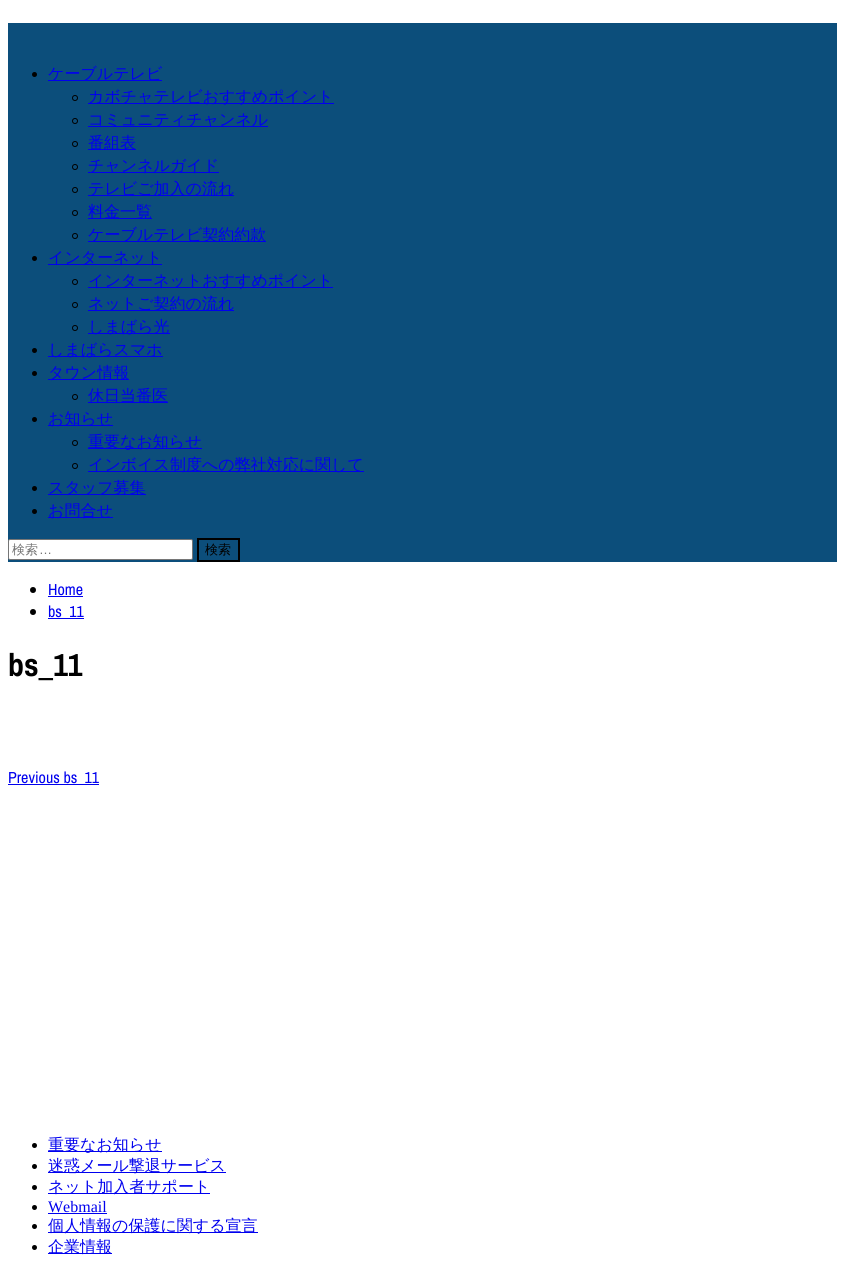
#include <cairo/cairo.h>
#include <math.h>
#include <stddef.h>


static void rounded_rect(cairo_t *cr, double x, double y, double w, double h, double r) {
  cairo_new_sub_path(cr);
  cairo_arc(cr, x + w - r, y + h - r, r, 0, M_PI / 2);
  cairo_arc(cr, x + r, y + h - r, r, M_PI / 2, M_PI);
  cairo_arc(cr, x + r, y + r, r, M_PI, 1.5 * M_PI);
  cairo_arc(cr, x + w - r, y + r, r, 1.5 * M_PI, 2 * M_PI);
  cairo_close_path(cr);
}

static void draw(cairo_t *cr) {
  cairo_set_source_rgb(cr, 1, 1, 1);
  cairo_paint(cr);
  cairo_set_source_rgb(cr, 12 / 255.0, 78 / 255.0, 123 / 255.0);
  cairo_rectangle(cr, 8, 23, 829, 539);
  cairo_fill(cr);
  cairo_set_source_rgb(cr, 0, 0, 0);
  cairo_arc(cr, 34.5, 74.5, 2.5, 0, 2 * M_PI);
  cairo_fill(cr);
  cairo_set_source_rgb(cr, 0, 0, 238 / 255.0);
  cairo_rectangle(cr, 48, 80, 114, 1);
  cairo_fill(cr);
  cairo_arc(cr, 75, 98, 2.5, 0, 2 * M_PI);
  cairo_set_source_rgb(cr, 0, 0, 0);
  cairo_set_line_width(cr, 1);
  cairo_stroke(cr);
  cairo_set_source_rgb(cr, 0, 0, 238 / 255.0);
  cairo_rectangle(cr, 88, 103, 246, 1);
  cairo_fill(cr);
  cairo_arc(cr, 75, 121, 2.5, 0, 2 * M_PI);
  cairo_set_source_rgb(cr, 0, 0, 0);
  cairo_stroke(cr);
  cairo_set_source_rgb(cr, 0, 0, 238 / 255.0);
  cairo_rectangle(cr, 88, 126, 180, 1);
  cairo_fill(cr);
  cairo_arc(cr, 75, 144, 2.5, 0, 2 * M_PI);
  cairo_set_source_rgb(cr, 0, 0, 0);
  cairo_stroke(cr);
  cairo_set_source_rgb(cr, 0, 0, 238 / 255.0);
  cairo_rectangle(cr, 88, 149, 48, 1);
  cairo_fill(cr);
  cairo_arc(cr, 75, 167, 2.5, 0, 2 * M_PI);
  cairo_set_source_rgb(cr, 0, 0, 0);
  cairo_stroke(cr);
  cairo_set_source_rgb(cr, 0, 0, 238 / 255.0);
  cairo_rectangle(cr, 88, 172, 131, 1);
  cairo_fill(cr);
  cairo_arc(cr, 75, 190, 2.5, 0, 2 * M_PI);
  cairo_set_source_rgb(cr, 0, 0, 0);
  cairo_stroke(cr);
  cairo_set_source_rgb(cr, 0, 0, 238 / 255.0);
  cairo_rectangle(cr, 88, 195, 146, 1);
  cairo_fill(cr);
  cairo_arc(cr, 75, 213, 2.5, 0, 2 * M_PI);
  cairo_set_source_rgb(cr, 0, 0, 0);
  cairo_stroke(cr);
  cairo_set_source_rgb(cr, 0, 0, 238 / 255.0);
  cairo_rectangle(cr, 88, 218, 64, 1);
  cairo_fill(cr);
  cairo_arc(cr, 75, 236, 2.5, 0, 2 * M_PI);
  cairo_set_source_rgb(cr, 0, 0, 0);
  cairo_stroke(cr);
  cairo_set_source_rgb(cr, 0, 0, 238 / 255.0);
  cairo_rectangle(cr, 88, 241, 178, 1);
  cairo_fill(cr);
  cairo_set_source_rgb(cr, 0, 0, 0);
  cairo_arc(cr, 34.5, 258.5, 2.5, 0, 2 * M_PI);
  cairo_fill(cr);
  cairo_set_source_rgb(cr, 0, 0, 238 / 255.0);
  cairo_rectangle(cr, 48, 264, 114, 1);
  cairo_fill(cr);
  cairo_arc(cr, 75, 282, 2.5, 0, 2 * M_PI);
  cairo_set_source_rgb(cr, 0, 0, 0);
  cairo_stroke(cr);
  cairo_set_source_rgb(cr, 0, 0, 238 / 255.0);
  cairo_rectangle(cr, 88, 287, 245, 1);
  cairo_fill(cr);
  cairo_arc(cr, 75, 305, 2.5, 0, 2 * M_PI);
  cairo_set_source_rgb(cr, 0, 0, 0);
  cairo_stroke(cr);
  cairo_set_source_rgb(cr, 0, 0, 238 / 255.0);
  cairo_rectangle(cr, 88, 310, 146, 1);
  cairo_fill(cr);
  cairo_arc(cr, 75, 328, 2.5, 0, 2 * M_PI);
  cairo_set_source_rgb(cr, 0, 0, 0);
  cairo_stroke(cr);
  cairo_set_source_rgb(cr, 0, 0, 238 / 255.0);
  cairo_rectangle(cr, 88, 333, 82, 1);
  cairo_fill(cr);
  cairo_set_source_rgb(cr, 0, 0, 0);
  cairo_arc(cr, 34.5, 350.5, 2.5, 0, 2 * M_PI);
  cairo_fill(cr);
  cairo_set_source_rgb(cr, 0, 0, 238 / 255.0);
  cairo_rectangle(cr, 48, 356, 115, 1);
  cairo_fill(cr);
  cairo_set_source_rgb(cr, 0, 0, 0);
  cairo_arc(cr, 34.5, 373.5, 2.5, 0, 2 * M_PI);
  cairo_fill(cr);
  cairo_set_source_rgb(cr, 0, 0, 238 / 255.0);
  cairo_rectangle(cr, 48, 379, 81, 1);
  cairo_fill(cr);
  cairo_arc(cr, 75, 397, 2.5, 0, 2 * M_PI);
  cairo_set_source_rgb(cr, 0, 0, 0);
  cairo_stroke(cr);
  cairo_set_source_rgb(cr, 0, 0, 238 / 255.0);
  cairo_rectangle(cr, 88, 402, 80, 1);
  cairo_fill(cr);
  cairo_set_source_rgb(cr, 0, 0, 0);
  cairo_arc(cr, 34.5, 419.5, 2.5, 0, 2 * M_PI);
  cairo_fill(cr);
  cairo_set_source_rgb(cr, 0, 0, 238 / 255.0);
  cairo_rectangle(cr, 48, 425, 65, 1);
  cairo_fill(cr);
  cairo_arc(cr, 75, 443, 2.5, 0, 2 * M_PI);
  cairo_set_source_rgb(cr, 0, 0, 0);
  cairo_stroke(cr);
  cairo_set_source_rgb(cr, 0, 0, 238 / 255.0);
  cairo_rectangle(cr, 88, 448, 114, 1);
  cairo_fill(cr);
  cairo_arc(cr, 75, 466, 2.5, 0, 2 * M_PI);
  cairo_set_source_rgb(cr, 0, 0, 0);
  cairo_stroke(cr);
  cairo_set_source_rgb(cr, 0, 0, 238 / 255.0);
  cairo_rectangle(cr, 88, 471, 276, 1);
  cairo_fill(cr);
  cairo_set_source_rgb(cr, 0, 0, 0);
  cairo_arc(cr, 34.5, 488.5, 2.5, 0, 2 * M_PI);
  cairo_fill(cr);
  cairo_set_source_rgb(cr, 0, 0, 238 / 255.0);
  cairo_rectangle(cr, 48, 494, 98, 1);
  cairo_fill(cr);
  cairo_set_source_rgb(cr, 0, 0, 0);
  cairo_arc(cr, 34.5, 511.5, 2.5, 0, 2 * M_PI);
  cairo_fill(cr);
  cairo_set_source_rgb(cr, 0, 0, 238 / 255.0);
  cairo_rectangle(cr, 48, 517, 65, 1);
  cairo_fill(cr);
  cairo_set_source_rgb(cr, 1, 1, 1);
  rounded_rect(cr, 8.5, 539.5, 184, 20, 1.5);
  cairo_fill_preserve(cr);
  cairo_set_source_rgb(cr, 118 / 255.0, 118 / 255.0, 118 / 255.0);
  cairo_stroke(cr);
  cairo_rectangle(cr, 198, 539, 41, 22);
  cairo_set_source_rgb(cr, 0, 0, 0);
  cairo_set_line_width(cr, 2);
  cairo_stroke(cr);
  cairo_arc(cr, 33, 590, 3, 0, 2 * M_PI);
  cairo_fill(cr);
  cairo_set_source_rgb(cr, 0, 0, 238 / 255.0);
  cairo_rectangle(cr, 48, 596, 35, 1);
  cairo_fill(cr);
  cairo_set_source_rgb(cr, 0, 0, 0);
  cairo_arc(cr, 33, 612, 3, 0, 2 * M_PI);
  cairo_fill(cr);
  cairo_set_source_rgb(cr, 0, 0, 238 / 255.0);
  cairo_rectangle(cr, 48, 618, 36, 1);
  cairo_fill(cr);
  cairo_rectangle(cr, 8, 784, 91, 1);
  cairo_fill(cr);
  cairo_set_source_rgb(cr, 0, 0, 0);
  cairo_arc(cr, 34.5, 1145.5, 2.5, 0, 2 * M_PI);
  cairo_fill(cr);
  cairo_set_source_rgb(cr, 0, 0, 238 / 255.0);
  cairo_rectangle(cr, 48, 1151, 114, 1);
  cairo_fill(cr);
  cairo_set_source_rgb(cr, 0, 0, 0);
  cairo_arc(cr, 34.5, 1166.5, 2.5, 0, 2 * M_PI);
  cairo_fill(cr);
  cairo_set_source_rgb(cr, 0, 0, 238 / 255.0);
  cairo_rectangle(cr, 48, 1172, 178, 1);
  cairo_fill(cr);
  cairo_set_source_rgb(cr, 0, 0, 0);
  cairo_arc(cr, 34.5, 1187.5, 2.5, 0, 2 * M_PI);
  cairo_fill(cr);
  cairo_set_source_rgb(cr, 0, 0, 238 / 255.0);
  cairo_rectangle(cr, 48, 1193, 162, 1);
  cairo_fill(cr);
  cairo_set_source_rgb(cr, 0, 0, 0);
  cairo_arc(cr, 34.5, 1207.5, 2.5, 0, 2 * M_PI);
  cairo_fill(cr);
  cairo_set_source_rgb(cr, 0, 0, 238 / 255.0);
  cairo_rectangle(cr, 48, 1213, 59, 1);
  cairo_fill(cr);
  cairo_set_source_rgb(cr, 0, 0, 0);
  cairo_arc(cr, 34.5, 1226.5, 2.5, 0, 2 * M_PI);
  cairo_fill(cr);
  cairo_set_source_rgb(cr, 0, 0, 238 / 255.0);
  cairo_rectangle(cr, 48, 1232, 210, 1);
  cairo_fill(cr);
  cairo_set_source_rgb(cr, 0, 0, 0);
  cairo_arc(cr, 34.5, 1247.5, 2.5, 0, 2 * M_PI);
  cairo_fill(cr);
  cairo_set_source_rgb(cr, 0, 0, 238 / 255.0);
  cairo_rectangle(cr, 48, 1253, 64, 1);
  cairo_fill(cr);
  cairo_select_font_face(cr, "WenQuanYi Zen Hei Medium", CAIRO_FONT_SLANT_NORMAL, CAIRO_FONT_WEIGHT_NORMAL);
  cairo_set_font_size(cr, 16);
  cairo_move_to(cr, 48, 79);
  cairo_show_text(cr, "ケーブルテレビ");
  cairo_move_to(cr, 88, 102);
  cairo_show_text(cr, "カボチャテレビおすすめポイント");
  cairo_move_to(cr, 88, 125);
  cairo_show_text(cr, "コミュニティチャンネル");
  cairo_move_to(cr, 88, 148);
  cairo_show_text(cr, "番組表");
  cairo_move_to(cr, 88, 171);
  cairo_show_text(cr, "チャンネルガイド");
  cairo_move_to(cr, 88, 194);
  cairo_show_text(cr, "テレビご加入の流れ");
  cairo_move_to(cr, 88, 217);
  cairo_show_text(cr, "料金一覧");
  cairo_move_to(cr, 88, 240);
  cairo_show_text(cr, "ケーブルテレビ契約約款");
  cairo_move_to(cr, 48, 263);
  cairo_show_text(cr, "インターネット");
  cairo_move_to(cr, 88, 286);
  cairo_show_text(cr, "インターネットおすすめポイント");
  cairo_move_to(cr, 88, 309);
  cairo_show_text(cr, "ネットご契約の流れ");
  cairo_move_to(cr, 88, 332);
  cairo_show_text(cr, "しまばら光");
  cairo_move_to(cr, 48, 355);
  cairo_show_text(cr, "しまばらスマホ");
  cairo_move_to(cr, 48, 378);
  cairo_show_text(cr, "タウン情報");
  cairo_move_to(cr, 88, 401);
  cairo_show_text(cr, "休日当番医");
  cairo_move_to(cr, 48, 424);
  cairo_show_text(cr, "お知らせ");
  cairo_move_to(cr, 88, 447);
  cairo_show_text(cr, "重要なお知らせ");
  cairo_move_to(cr, 88, 470);
  cairo_show_text(cr, "インボイス制度への弊社対応に関して");
  cairo_move_to(cr, 48, 493);
  cairo_show_text(cr, "スタッフ募集");
  cairo_move_to(cr, 48, 516);
  cairo_show_text(cr, "お問合せ");
  cairo_set_font_size(cr, 13);
  cairo_set_source_rgb(cr, 117 / 255.0, 117 / 255.0, 117 / 255.0);
  cairo_move_to(cr, 12, 554);
  cairo_show_text(cr, "検索");
  cairo_select_font_face(cr, "Liberation Sans", CAIRO_FONT_SLANT_NORMAL, CAIRO_FONT_WEIGHT_NORMAL);
  cairo_move_to(cr, 39, 554);
  cairo_show_text(cr, "…");
  cairo_select_font_face(cr, "WenQuanYi Zen Hei Medium", CAIRO_FONT_SLANT_NORMAL, CAIRO_FONT_WEIGHT_NORMAL);
  cairo_set_source_rgb(cr, 0, 0, 0);
  cairo_move_to(cr, 205, 554);
  cairo_show_text(cr, "検索");
  cairo_select_font_face(cr, "Archivo Narrow", CAIRO_FONT_SLANT_NORMAL, CAIRO_FONT_WEIGHT_NORMAL);
  cairo_set_font_size(cr, 16);
  cairo_set_source_rgb(cr, 0, 0, 238 / 255.0);
  cairo_move_to(cr, 48, 595);
  cairo_show_text(cr, "Home");
  cairo_move_to(cr, 48, 617);
  cairo_show_text(cr, "bs_11");
  cairo_select_font_face(cr, "Archivo Narrow", CAIRO_FONT_SLANT_NORMAL, CAIRO_FONT_WEIGHT_BOLD);
  cairo_set_font_size(cr, 32);
  cairo_set_source_rgb(cr, 0, 0, 0);
  cairo_move_to(cr, 8, 676);
  cairo_show_text(cr, "bs_11");
  cairo_select_font_face(cr, "Archivo Narrow", CAIRO_FONT_SLANT_NORMAL, CAIRO_FONT_WEIGHT_NORMAL);
  cairo_set_font_size(cr, 16);
  cairo_set_source_rgb(cr, 0, 0, 238 / 255.0);
  cairo_move_to(cr, 8, 783);
  cairo_show_text(cr, "Previous bs_11");
  cairo_select_font_face(cr, "WenQuanYi Zen Hei Medium", CAIRO_FONT_SLANT_NORMAL, CAIRO_FONT_WEIGHT_NORMAL);
  cairo_move_to(cr, 48, 1150);
  cairo_show_text(cr, "重要なお知らせ");
  cairo_move_to(cr, 48, 1171);
  cairo_show_text(cr, "迷惑メール撃退サービス");
  cairo_move_to(cr, 48, 1192);
  cairo_show_text(cr, "ネット加入者サポート");
  cairo_select_font_face(cr, "Liberation Serif", CAIRO_FONT_SLANT_NORMAL, CAIRO_FONT_WEIGHT_NORMAL);
  cairo_move_to(cr, 48, 1212);
  cairo_show_text(cr, "Webmail");
  cairo_select_font_face(cr, "WenQuanYi Zen Hei Medium", CAIRO_FONT_SLANT_NORMAL, CAIRO_FONT_WEIGHT_NORMAL);
  cairo_move_to(cr, 48, 1231);
  cairo_show_text(cr, "個人情報の保護に関する宣言");
  cairo_move_to(cr, 48, 1252);
  cairo_show_text(cr, "企業情報");
}

int main(void) {
  cairo_surface_t *surface = cairo_image_surface_create(CAIRO_FORMAT_RGB24, 845, 1281);
  cairo_t *cr = cairo_create(surface);
  cairo_font_options_t *options = cairo_font_options_create();
  cairo_font_options_set_hint_metrics(options, CAIRO_HINT_METRICS_OFF);
  cairo_font_options_set_hint_style(options, CAIRO_HINT_STYLE_NONE);
  cairo_set_font_options(cr, options);
  cairo_set_miter_limit(cr, 4);
  draw(cr);
  cairo_surface_write_to_png(surface, "out.png");
  cairo_font_options_destroy(options);
  cairo_destroy(cr);
  cairo_surface_destroy(surface);
  return 0;
}
